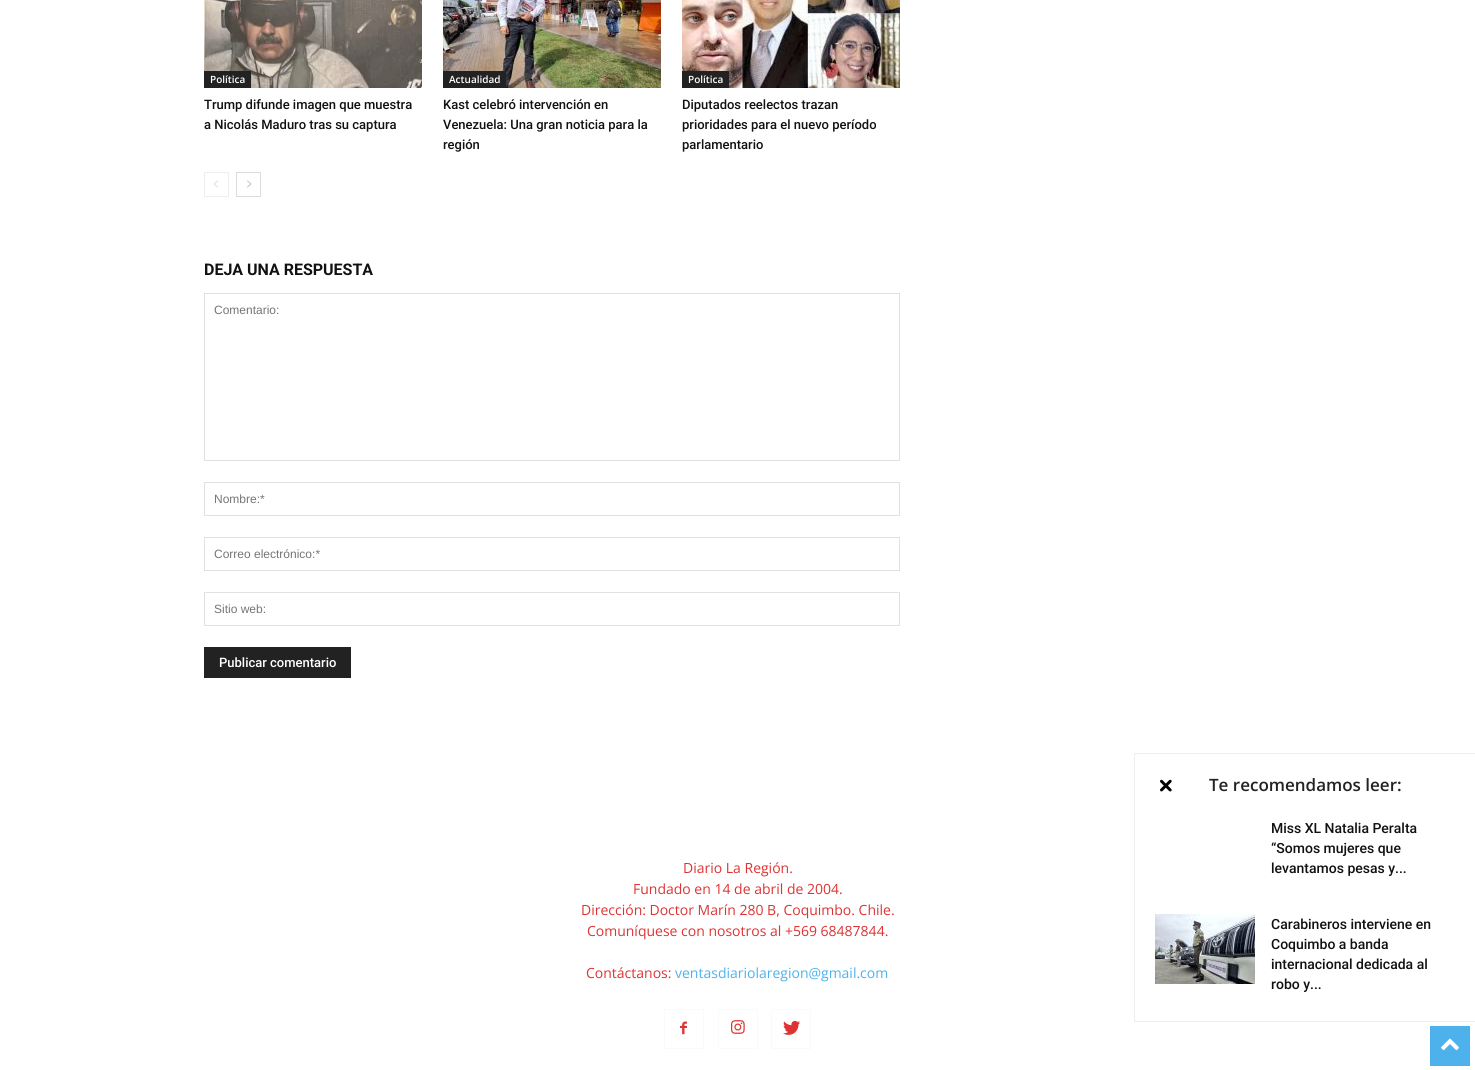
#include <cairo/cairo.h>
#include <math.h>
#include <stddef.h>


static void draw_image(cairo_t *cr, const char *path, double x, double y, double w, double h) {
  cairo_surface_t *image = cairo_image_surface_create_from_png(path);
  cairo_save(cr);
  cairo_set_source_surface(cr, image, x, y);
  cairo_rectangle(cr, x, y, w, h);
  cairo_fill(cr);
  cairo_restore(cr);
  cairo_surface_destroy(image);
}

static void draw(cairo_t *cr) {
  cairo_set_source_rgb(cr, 1, 1, 1);
  cairo_paint(cr);
  draw_image(cr, "images/1.png", 204, 0, 218, 88);
  cairo_set_source_rgb(cr, 34 / 255.0, 34 / 255.0, 34 / 255.0);
  cairo_rectangle(cr, 204, 71, 47, 17);
  cairo_fill(cr);
  draw_image(cr, "images/2.png", 443, 0, 218, 88);
  cairo_rectangle(cr, 443, 71, 63, 17);
  cairo_fill(cr);
  draw_image(cr, "images/3.png", 682, 0, 218, 88);
  cairo_rectangle(cr, 682, 71, 47, 17);
  cairo_fill(cr);
  cairo_rectangle(cr, 204.5, 172.5, 24, 24);
  cairo_set_source_rgb(cr, 238 / 255.0, 238 / 255.0, 238 / 255.0);
  cairo_set_line_width(cr, 1);
  cairo_stroke(cr);
  draw_image(cr, "images/4.png", 213, 180, 5, 8);
  cairo_rectangle(cr, 236.5, 172.5, 24, 24);
  cairo_set_source_rgb(cr, 220 / 255.0, 220 / 255.0, 220 / 255.0);
  cairo_stroke(cr);
  draw_image(cr, "images/5.png", 247, 180, 5, 8);
  cairo_rectangle(cr, 204.5, 293.5, 695, 167);
  cairo_set_source_rgb(cr, 225 / 255.0, 225 / 255.0, 225 / 255.0);
  cairo_stroke(cr);
  cairo_rectangle(cr, 204.5, 482.5, 695, 33);
  cairo_stroke(cr);
  cairo_rectangle(cr, 204.5, 537.5, 695, 33);
  cairo_stroke(cr);
  cairo_rectangle(cr, 204.5, 592.5, 695, 33);
  cairo_stroke(cr);
  cairo_set_source_rgb(cr, 34 / 255.0, 34 / 255.0, 34 / 255.0);
  cairo_rectangle(cr, 204, 647, 147, 31);
  cairo_fill(cr);
  draw_image(cr, "images/6.png", 680, 1021, 7, 14);
  cairo_rectangle(cr, 664.5, 1009.5, 39, 39);
  cairo_set_source_rgb(cr, 254 / 255.0, 249 / 255.0, 249 / 255.0);
  cairo_stroke(cr);
  draw_image(cr, "images/7.png", 731, 1020, 14, 14);
  cairo_rectangle(cr, 718.5, 1009.5, 39, 39);
  cairo_stroke(cr);
  draw_image(cr, "images/8.png", 783, 1020, 18, 15);
  cairo_rectangle(cr, 771.5, 1009.5, 39, 39);
  cairo_stroke(cr);
  cairo_set_source_rgb(cr, 237 / 255.0, 237 / 255.0, 237 / 255.0);
  cairo_rectangle(cr, 1134, 753, 341, 1);
  cairo_fill(cr);
  cairo_rectangle(cr, 1134, 1021, 341, 1);
  cairo_fill(cr);
  cairo_rectangle(cr, 1134, 753, 1, 269);
  cairo_fill(cr);
  draw_image(cr, "images/9.png", 1160, 779, 12, 13);
  draw_image(cr, "images/10.png", 1155, 914, 100, 70);
  cairo_set_source_rgb(cr, 77 / 255.0, 178 / 255.0, 236 / 255.0);
  cairo_rectangle(cr, 1430, 1026, 40, 40);
  cairo_fill(cr);
  draw_image(cr, "images/11.png", 1441, 1038, 18, 13);
  cairo_select_font_face(cr, "Open Sans SemiBold", CAIRO_FONT_SLANT_NORMAL, CAIRO_FONT_WEIGHT_NORMAL);
  cairo_set_font_size(cr, 10);
  cairo_set_source_rgb(cr, 1, 1, 1);
  cairo_move_to(cr, 210, 83);
  cairo_show_text(cr, "Política");
  cairo_select_font_face(cr, "Roboto Medium", CAIRO_FONT_SLANT_NORMAL, CAIRO_FONT_WEIGHT_NORMAL);
  cairo_set_font_size(cr, 13);
  cairo_set_source_rgb(cr, 17 / 255.0, 17 / 255.0, 17 / 255.0);
  cairo_move_to(cr, 204, 109);
  cairo_show_text(cr, "Trump difunde imagen que muestra");
  cairo_move_to(cr, 204, 129);
  cairo_show_text(cr, "a Nicolás Maduro tras su captura");
  cairo_select_font_face(cr, "Open Sans SemiBold", CAIRO_FONT_SLANT_NORMAL, CAIRO_FONT_WEIGHT_NORMAL);
  cairo_set_font_size(cr, 10);
  cairo_set_source_rgb(cr, 1, 1, 1);
  cairo_move_to(cr, 449, 83);
  cairo_show_text(cr, "Actualidad");
  cairo_select_font_face(cr, "Roboto Medium", CAIRO_FONT_SLANT_NORMAL, CAIRO_FONT_WEIGHT_NORMAL);
  cairo_set_font_size(cr, 13);
  cairo_set_source_rgb(cr, 17 / 255.0, 17 / 255.0, 17 / 255.0);
  cairo_move_to(cr, 443, 109);
  cairo_show_text(cr, "Kast celebró intervención en");
  cairo_move_to(cr, 443, 129);
  cairo_show_text(cr, "Venezuela: Una gran noticia para la");
  cairo_move_to(cr, 443, 149);
  cairo_show_text(cr, "región");
  cairo_select_font_face(cr, "Open Sans SemiBold", CAIRO_FONT_SLANT_NORMAL, CAIRO_FONT_WEIGHT_NORMAL);
  cairo_set_font_size(cr, 10);
  cairo_set_source_rgb(cr, 1, 1, 1);
  cairo_move_to(cr, 688, 83);
  cairo_show_text(cr, "Política");
  cairo_select_font_face(cr, "Roboto Medium", CAIRO_FONT_SLANT_NORMAL, CAIRO_FONT_WEIGHT_NORMAL);
  cairo_set_font_size(cr, 13);
  cairo_set_source_rgb(cr, 17 / 255.0, 17 / 255.0, 17 / 255.0);
  cairo_move_to(cr, 682, 109);
  cairo_show_text(cr, "Diputados reelectos trazan");
  cairo_move_to(cr, 682, 129);
  cairo_show_text(cr, "prioridades para el nuevo período");
  cairo_move_to(cr, 682, 149);
  cairo_show_text(cr, "parlamentario");
  cairo_select_font_face(cr, "Roboto", CAIRO_FONT_SLANT_NORMAL, CAIRO_FONT_WEIGHT_BOLD);
  cairo_set_font_size(cr, 16);
  cairo_move_to(cr, 204, 275);
  cairo_show_text(cr, "DEJA UNA RESPUESTA");
  cairo_select_font_face(cr, "Liberation Sans", CAIRO_FONT_SLANT_NORMAL, CAIRO_FONT_WEIGHT_NORMAL);
  cairo_set_font_size(cr, 12);
  cairo_set_source_rgb(cr, 117 / 255.0, 117 / 255.0, 117 / 255.0);
  cairo_move_to(cr, 214, 314);
  cairo_show_text(cr, "Comentario:");
  cairo_move_to(cr, 214, 503);
  cairo_show_text(cr, "Nombre:*");
  cairo_move_to(cr, 214, 558);
  cairo_show_text(cr, "Correo electrónico:*");
  cairo_move_to(cr, 214, 613);
  cairo_show_text(cr, "Sitio web:");
  cairo_select_font_face(cr, "Roboto Medium", CAIRO_FONT_SLANT_NORMAL, CAIRO_FONT_WEIGHT_NORMAL);
  cairo_set_font_size(cr, 13);
  cairo_set_source_rgb(cr, 1, 1, 1);
  cairo_move_to(cr, 219, 667);
  cairo_show_text(cr, "Publicar comentario");
  cairo_select_font_face(cr, "Open Sans", CAIRO_FONT_SLANT_NORMAL, CAIRO_FONT_WEIGHT_NORMAL);
  cairo_set_font_size(cr, 14);
  cairo_set_source_rgb(cr, 221 / 255.0, 51 / 255.0, 51 / 255.0);
  cairo_move_to(cr, 683, 873);
  cairo_show_text(cr, "Diario La Región.");
  cairo_move_to(cr, 633, 894);
  cairo_show_text(cr, "Fundado en 14 de abril de 2004.");
  cairo_move_to(cr, 581, 915);
  cairo_show_text(cr, "Dirección: Doctor Marín 280 B, Coquimbo. Chile.");
  cairo_move_to(cr, 587, 936);
  cairo_show_text(cr, "Comuníquese con nosotros al +569 68487844.");
  cairo_move_to(cr, 586, 978);
  cairo_show_text(cr, "Contáctanos:");
  cairo_set_source_rgb(cr, 77 / 255.0, 178 / 255.0, 236 / 255.0);
  cairo_move_to(cr, 675, 978);
  cairo_show_text(cr, "ventasdiariolaregion@gmail.com");
  cairo_select_font_face(cr, "Open Sans SemiBold", CAIRO_FONT_SLANT_NORMAL, CAIRO_FONT_WEIGHT_NORMAL);
  cairo_set_font_size(cr, 17);
  cairo_set_source_rgb(cr, 34 / 255.0, 34 / 255.0, 34 / 255.0);
  cairo_move_to(cr, 1209, 791);
  cairo_show_text(cr, "Te recomendamos leer:");
  cairo_select_font_face(cr, "Roboto Medium", CAIRO_FONT_SLANT_NORMAL, CAIRO_FONT_WEIGHT_NORMAL);
  cairo_set_font_size(cr, 14);
  cairo_set_source_rgb(cr, 17 / 255.0, 17 / 255.0, 17 / 255.0);
  cairo_move_to(cr, 1271, 833);
  cairo_show_text(cr, "Miss XL Natalia Peralta");
  cairo_move_to(cr, 1271, 853);
  cairo_show_text(cr, "“Somos mujeres que");
  cairo_move_to(cr, 1271, 873);
  cairo_show_text(cr, "levantamos pesas y...");
  cairo_move_to(cr, 1271, 929);
  cairo_show_text(cr, "Carabineros interviene en");
  cairo_move_to(cr, 1271, 949);
  cairo_show_text(cr, "Coquimbo a banda");
  cairo_move_to(cr, 1271, 969);
  cairo_show_text(cr, "internacional dedicada al");
  cairo_move_to(cr, 1271, 989);
  cairo_show_text(cr, "robo y...");
}

int main(void) {
  cairo_surface_t *surface = cairo_image_surface_create(CAIRO_FORMAT_RGB24, 1475, 1070);
  cairo_t *cr = cairo_create(surface);
  cairo_font_options_t *options = cairo_font_options_create();
  cairo_font_options_set_hint_metrics(options, CAIRO_HINT_METRICS_OFF);
  cairo_font_options_set_hint_style(options, CAIRO_HINT_STYLE_NONE);
  cairo_set_font_options(cr, options);
  cairo_set_miter_limit(cr, 4);
  draw(cr);
  cairo_surface_write_to_png(surface, "out.png");
  cairo_font_options_destroy(options);
  cairo_destroy(cr);
  cairo_surface_destroy(surface);
  return 0;
}
